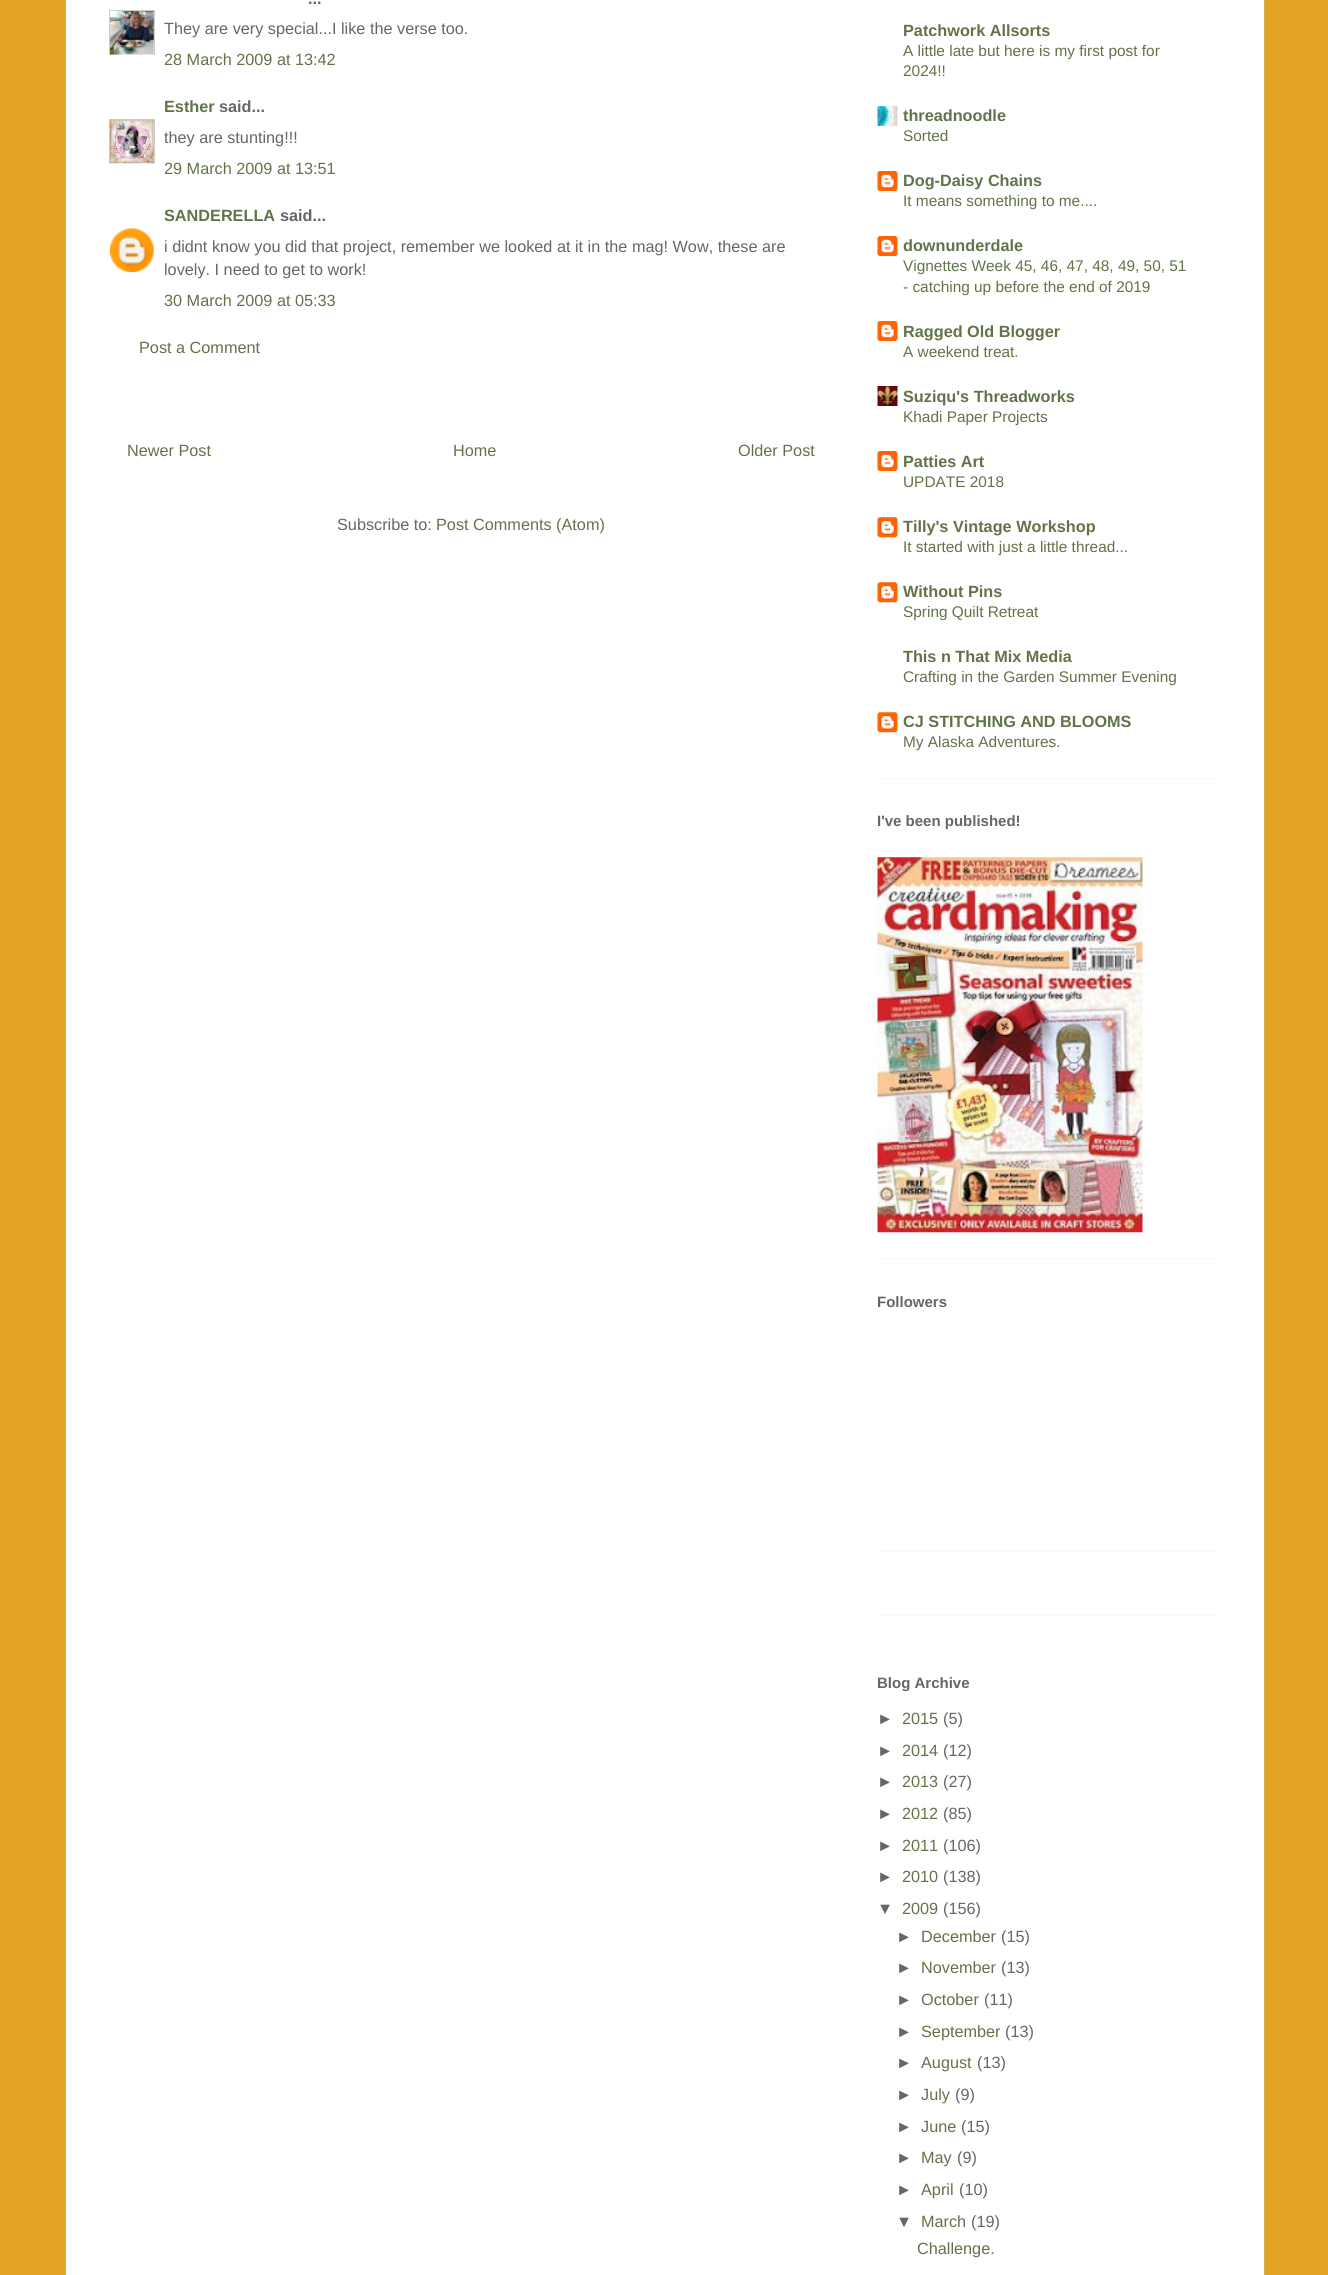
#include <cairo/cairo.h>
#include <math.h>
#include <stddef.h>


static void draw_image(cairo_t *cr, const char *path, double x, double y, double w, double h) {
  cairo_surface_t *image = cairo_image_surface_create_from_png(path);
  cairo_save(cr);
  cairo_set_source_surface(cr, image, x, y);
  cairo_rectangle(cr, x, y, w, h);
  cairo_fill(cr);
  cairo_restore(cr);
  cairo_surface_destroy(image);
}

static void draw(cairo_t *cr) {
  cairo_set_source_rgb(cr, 227 / 255.0, 163 / 255.0, 39 / 255.0);
  cairo_paint(cr);
  cairo_set_source_rgb(cr, 1, 1, 1);
  cairo_rectangle(cr, 66, 0, 1198, 2275);
  cairo_fill(cr);
  cairo_set_source_rgb(cr, 216 / 255.0, 175 / 255.0, 76 / 255.0);
  cairo_rectangle(cr, 1264, 0, 1, 2275);
  cairo_fill(cr);
  cairo_rectangle(cr, 65, 0, 1, 2275);
  cairo_fill(cr);
  cairo_save(cr);
  cairo_rectangle(cr, 109, 10, 46, 45);
  cairo_clip(cr);
  cairo_rectangle(cr, 109.5, 10.5, 45, 45);
  cairo_set_source_rgb(cr, 204 / 255.0, 204 / 255.0, 204 / 255.0);
  cairo_set_line_width(cr, 1);
  cairo_stroke(cr);
  cairo_restore(cr);
  draw_image(cr, "images/1.png", 110, 11, 44, 44);
  cairo_save(cr);
  cairo_rectangle(cr, 109, 119, 46, 45);
  cairo_clip(cr);
  cairo_rectangle(cr, 109.5, 119.5, 45, 45);
  cairo_set_source_rgb(cr, 204 / 255.0, 204 / 255.0, 204 / 255.0);
  cairo_set_line_width(cr, 1);
  cairo_stroke(cr);
  cairo_restore(cr);
  draw_image(cr, "images/2.png", 110, 119, 44, 45);
  draw_image(cr, "images/3.png", 110, 228, 44, 45);
  cairo_set_source_rgb(cr, 249 / 255.0, 249 / 255.0, 249 / 255.0);
  cairo_rectangle(cr, 878, 778, 343, 1);
  cairo_fill(cr);
  draw_image(cr, "images/4.png", 877, 106, 21, 20);
  draw_image(cr, "images/5.png", 877, 171, 21, 20);
  draw_image(cr, "images/5.png", 877, 236, 21, 20);
  draw_image(cr, "images/6.png", 877, 321, 21, 20);
  draw_image(cr, "images/7.png", 877, 386, 21, 20);
  draw_image(cr, "images/5.png", 877, 451, 21, 20);
  draw_image(cr, "images/8.png", 877, 517, 21, 21);
  draw_image(cr, "images/9.png", 877, 582, 21, 21);
  draw_image(cr, "images/9.png", 877, 712, 21, 21);
  cairo_rectangle(cr, 878, 1258, 343, 1);
  cairo_fill(cr);
  draw_image(cr, "images/10.png", 877, 857, 266, 376);
  cairo_rectangle(cr, 878, 1551, 343, 1);
  cairo_fill(cr);
  cairo_rectangle(cr, 878, 1615, 343, 1);
  cairo_fill(cr);
  cairo_select_font_face(cr, "Liberation Sans", CAIRO_FONT_SLANT_NORMAL, CAIRO_FONT_WEIGHT_BOLD);
  cairo_set_font_size(cr, 16.25);
  cairo_set_source_rgb(cr, 102 / 255.0, 102 / 255.0, 102 / 255.0);
  cairo_move_to(cr, 308, 4);
  cairo_show_text(cr, "...");
  cairo_select_font_face(cr, "Liberation Sans", CAIRO_FONT_SLANT_NORMAL, CAIRO_FONT_WEIGHT_NORMAL);
  cairo_move_to(cr, 164, 34);
  cairo_show_text(cr, "They are very special...I like the verse too.");
  cairo_set_source_rgb(cr, 98 / 255.0, 115 / 255.0, 73 / 255.0);
  cairo_move_to(cr, 164, 65);
  cairo_show_text(cr, "28 March 2009 at 13:42");
  cairo_select_font_face(cr, "Liberation Sans", CAIRO_FONT_SLANT_NORMAL, CAIRO_FONT_WEIGHT_BOLD);
  cairo_move_to(cr, 164, 112);
  cairo_show_text(cr, "Esther");
  cairo_set_source_rgb(cr, 102 / 255.0, 102 / 255.0, 102 / 255.0);
  cairo_move_to(cr, 219, 112);
  cairo_show_text(cr, "said...");
  cairo_select_font_face(cr, "Liberation Sans", CAIRO_FONT_SLANT_NORMAL, CAIRO_FONT_WEIGHT_NORMAL);
  cairo_move_to(cr, 164, 143);
  cairo_show_text(cr, "they are stunting!!!");
  cairo_set_source_rgb(cr, 98 / 255.0, 115 / 255.0, 73 / 255.0);
  cairo_move_to(cr, 164, 174);
  cairo_show_text(cr, "29 March 2009 at 13:51");
  cairo_select_font_face(cr, "Liberation Sans", CAIRO_FONT_SLANT_NORMAL, CAIRO_FONT_WEIGHT_BOLD);
  cairo_move_to(cr, 164, 221);
  cairo_show_text(cr, "SANDERELLA");
  cairo_set_source_rgb(cr, 102 / 255.0, 102 / 255.0, 102 / 255.0);
  cairo_move_to(cr, 280, 221);
  cairo_show_text(cr, "said...");
  cairo_select_font_face(cr, "Liberation Sans", CAIRO_FONT_SLANT_NORMAL, CAIRO_FONT_WEIGHT_NORMAL);
  cairo_move_to(cr, 164, 252);
  cairo_show_text(cr, "i didnt know you did that project, remember we looked at it in the mag! Wow, these are");
  cairo_move_to(cr, 164, 275);
  cairo_show_text(cr, "lovely. I need to get to work!");
  cairo_set_source_rgb(cr, 98 / 255.0, 115 / 255.0, 73 / 255.0);
  cairo_move_to(cr, 164, 306);
  cairo_show_text(cr, "30 March 2009 at 05:33");
  cairo_move_to(cr, 139, 353);
  cairo_show_text(cr, "Post a Comment");
  cairo_move_to(cr, 127, 456);
  cairo_show_text(cr, "Newer Post");
  cairo_move_to(cr, 453, 456);
  cairo_show_text(cr, "Home");
  cairo_move_to(cr, 738, 456);
  cairo_show_text(cr, "Older Post");
  cairo_set_source_rgb(cr, 102 / 255.0, 102 / 255.0, 102 / 255.0);
  cairo_move_to(cr, 337, 530);
  cairo_show_text(cr, "Subscribe to:");
  cairo_set_source_rgb(cr, 98 / 255.0, 115 / 255.0, 73 / 255.0);
  cairo_move_to(cr, 436, 530);
  cairo_show_text(cr, "Post Comments (Atom)");
  cairo_select_font_face(cr, "Liberation Sans", CAIRO_FONT_SLANT_NORMAL, CAIRO_FONT_WEIGHT_BOLD);
  cairo_move_to(cr, 903, 36);
  cairo_show_text(cr, "Patchwork Allsorts");
  cairo_select_font_face(cr, "Liberation Sans", CAIRO_FONT_SLANT_NORMAL, CAIRO_FONT_WEIGHT_NORMAL);
  cairo_set_font_size(cr, 15.4);
  cairo_move_to(cr, 903, 56);
  cairo_show_text(cr, "A little late but here is my first post for");
  cairo_move_to(cr, 903, 76);
  cairo_show_text(cr, "2024!!");
  cairo_select_font_face(cr, "Liberation Sans", CAIRO_FONT_SLANT_NORMAL, CAIRO_FONT_WEIGHT_BOLD);
  cairo_set_font_size(cr, 16.25);
  cairo_move_to(cr, 903, 121);
  cairo_show_text(cr, "threadnoodle");
  cairo_select_font_face(cr, "Liberation Sans", CAIRO_FONT_SLANT_NORMAL, CAIRO_FONT_WEIGHT_NORMAL);
  cairo_set_font_size(cr, 15.4);
  cairo_move_to(cr, 903, 141);
  cairo_show_text(cr, "Sorted");
  cairo_select_font_face(cr, "Liberation Sans", CAIRO_FONT_SLANT_NORMAL, CAIRO_FONT_WEIGHT_BOLD);
  cairo_set_font_size(cr, 16.25);
  cairo_move_to(cr, 903, 186);
  cairo_show_text(cr, "Dog-Daisy Chains");
  cairo_select_font_face(cr, "Liberation Sans", CAIRO_FONT_SLANT_NORMAL, CAIRO_FONT_WEIGHT_NORMAL);
  cairo_set_font_size(cr, 15.4);
  cairo_move_to(cr, 903, 206);
  cairo_show_text(cr, "It means something to me....");
  cairo_select_font_face(cr, "Liberation Sans", CAIRO_FONT_SLANT_NORMAL, CAIRO_FONT_WEIGHT_BOLD);
  cairo_set_font_size(cr, 16.25);
  cairo_move_to(cr, 903, 251);
  cairo_show_text(cr, "downunderdale");
  cairo_select_font_face(cr, "Liberation Sans", CAIRO_FONT_SLANT_NORMAL, CAIRO_FONT_WEIGHT_NORMAL);
  cairo_set_font_size(cr, 15.4);
  cairo_move_to(cr, 903, 271);
  cairo_show_text(cr, "Vignettes Week 45, 46, 47, 48, 49, 50, 51");
  cairo_move_to(cr, 903, 292);
  cairo_show_text(cr, "- catching up before the end of 2019");
  cairo_select_font_face(cr, "Liberation Sans", CAIRO_FONT_SLANT_NORMAL, CAIRO_FONT_WEIGHT_BOLD);
  cairo_set_font_size(cr, 16.25);
  cairo_move_to(cr, 903, 337);
  cairo_show_text(cr, "Ragged Old Blogger");
  cairo_select_font_face(cr, "Liberation Sans", CAIRO_FONT_SLANT_NORMAL, CAIRO_FONT_WEIGHT_NORMAL);
  cairo_set_font_size(cr, 15.4);
  cairo_move_to(cr, 903, 357);
  cairo_show_text(cr, "A weekend treat.");
  cairo_select_font_face(cr, "Liberation Sans", CAIRO_FONT_SLANT_NORMAL, CAIRO_FONT_WEIGHT_BOLD);
  cairo_set_font_size(cr, 16.25);
  cairo_move_to(cr, 903, 402);
  cairo_show_text(cr, "Suziqu's Threadworks");
  cairo_select_font_face(cr, "Liberation Sans", CAIRO_FONT_SLANT_NORMAL, CAIRO_FONT_WEIGHT_NORMAL);
  cairo_set_font_size(cr, 15.4);
  cairo_move_to(cr, 903, 422);
  cairo_show_text(cr, "Khadi Paper Projects");
  cairo_select_font_face(cr, "Liberation Sans", CAIRO_FONT_SLANT_NORMAL, CAIRO_FONT_WEIGHT_BOLD);
  cairo_set_font_size(cr, 16.25);
  cairo_move_to(cr, 903, 467);
  cairo_show_text(cr, "Patties Art");
  cairo_select_font_face(cr, "Liberation Sans", CAIRO_FONT_SLANT_NORMAL, CAIRO_FONT_WEIGHT_NORMAL);
  cairo_set_font_size(cr, 15.4);
  cairo_move_to(cr, 903, 487);
  cairo_show_text(cr, "UPDATE 2018");
  cairo_select_font_face(cr, "Liberation Sans", CAIRO_FONT_SLANT_NORMAL, CAIRO_FONT_WEIGHT_BOLD);
  cairo_set_font_size(cr, 16.25);
  cairo_move_to(cr, 903, 532);
  cairo_show_text(cr, "Tilly's Vintage Workshop");
  cairo_select_font_face(cr, "Liberation Sans", CAIRO_FONT_SLANT_NORMAL, CAIRO_FONT_WEIGHT_NORMAL);
  cairo_set_font_size(cr, 15.4);
  cairo_move_to(cr, 903, 552);
  cairo_show_text(cr, "It started with just a little thread...");
  cairo_select_font_face(cr, "Liberation Sans", CAIRO_FONT_SLANT_NORMAL, CAIRO_FONT_WEIGHT_BOLD);
  cairo_set_font_size(cr, 16.25);
  cairo_move_to(cr, 903, 597);
  cairo_show_text(cr, "Without Pins");
  cairo_select_font_face(cr, "Liberation Sans", CAIRO_FONT_SLANT_NORMAL, CAIRO_FONT_WEIGHT_NORMAL);
  cairo_set_font_size(cr, 15.4);
  cairo_move_to(cr, 903, 617);
  cairo_show_text(cr, "Spring Quilt Retreat");
  cairo_select_font_face(cr, "Liberation Sans", CAIRO_FONT_SLANT_NORMAL, CAIRO_FONT_WEIGHT_BOLD);
  cairo_set_font_size(cr, 16.25);
  cairo_move_to(cr, 903, 662);
  cairo_show_text(cr, "This n That Mix Media");
  cairo_select_font_face(cr, "Liberation Sans", CAIRO_FONT_SLANT_NORMAL, CAIRO_FONT_WEIGHT_NORMAL);
  cairo_set_font_size(cr, 15.4);
  cairo_move_to(cr, 903, 682);
  cairo_show_text(cr, "Crafting in the Garden Summer Evening");
  cairo_select_font_face(cr, "Liberation Sans", CAIRO_FONT_SLANT_NORMAL, CAIRO_FONT_WEIGHT_BOLD);
  cairo_set_font_size(cr, 16.25);
  cairo_move_to(cr, 903, 727);
  cairo_show_text(cr, "CJ STITCHING AND BLOOMS");
  cairo_select_font_face(cr, "Liberation Sans", CAIRO_FONT_SLANT_NORMAL, CAIRO_FONT_WEIGHT_NORMAL);
  cairo_set_font_size(cr, 15.4);
  cairo_move_to(cr, 903, 747);
  cairo_show_text(cr, "My Alaska Adventures.");
  cairo_select_font_face(cr, "Liberation Sans", CAIRO_FONT_SLANT_NORMAL, CAIRO_FONT_WEIGHT_BOLD);
  cairo_set_font_size(cr, 15);
  cairo_set_source_rgb(cr, 102 / 255.0, 102 / 255.0, 102 / 255.0);
  cairo_move_to(cr, 877, 826);
  cairo_show_text(cr, "I've been published!");
  cairo_move_to(cr, 877, 1307);
  cairo_show_text(cr, "Followers");
  cairo_move_to(cr, 877, 1688);
  cairo_show_text(cr, "Blog Archive");
  cairo_select_font_face(cr, "Liberation Sans", CAIRO_FONT_SLANT_NORMAL, CAIRO_FONT_WEIGHT_NORMAL);
  cairo_set_font_size(cr, 16.25);
  cairo_move_to(cr, 877, 1724);
  cairo_show_text(cr, "►");
  cairo_set_source_rgb(cr, 98 / 255.0, 115 / 255.0, 73 / 255.0);
  cairo_move_to(cr, 902, 1724);
  cairo_show_text(cr, "2015");
  cairo_set_source_rgb(cr, 102 / 255.0, 102 / 255.0, 102 / 255.0);
  cairo_move_to(cr, 943, 1724);
  cairo_show_text(cr, "(5)");
  cairo_move_to(cr, 877, 1756);
  cairo_show_text(cr, "►");
  cairo_set_source_rgb(cr, 98 / 255.0, 115 / 255.0, 73 / 255.0);
  cairo_move_to(cr, 902, 1756);
  cairo_show_text(cr, "2014");
  cairo_set_source_rgb(cr, 102 / 255.0, 102 / 255.0, 102 / 255.0);
  cairo_move_to(cr, 943, 1756);
  cairo_show_text(cr, "(12)");
  cairo_move_to(cr, 877, 1787);
  cairo_show_text(cr, "►");
  cairo_set_source_rgb(cr, 98 / 255.0, 115 / 255.0, 73 / 255.0);
  cairo_move_to(cr, 902, 1787);
  cairo_show_text(cr, "2013");
  cairo_set_source_rgb(cr, 102 / 255.0, 102 / 255.0, 102 / 255.0);
  cairo_move_to(cr, 943, 1787);
  cairo_show_text(cr, "(27)");
  cairo_move_to(cr, 877, 1819);
  cairo_show_text(cr, "►");
  cairo_set_source_rgb(cr, 98 / 255.0, 115 / 255.0, 73 / 255.0);
  cairo_move_to(cr, 902, 1819);
  cairo_show_text(cr, "2012");
  cairo_set_source_rgb(cr, 102 / 255.0, 102 / 255.0, 102 / 255.0);
  cairo_move_to(cr, 943, 1819);
  cairo_show_text(cr, "(85)");
  cairo_move_to(cr, 877, 1851);
  cairo_show_text(cr, "►");
  cairo_set_source_rgb(cr, 98 / 255.0, 115 / 255.0, 73 / 255.0);
  cairo_move_to(cr, 902, 1851);
  cairo_show_text(cr, "2011");
  cairo_set_source_rgb(cr, 102 / 255.0, 102 / 255.0, 102 / 255.0);
  cairo_move_to(cr, 943, 1851);
  cairo_show_text(cr, "(106)");
  cairo_move_to(cr, 877, 1882);
  cairo_show_text(cr, "►");
  cairo_set_source_rgb(cr, 98 / 255.0, 115 / 255.0, 73 / 255.0);
  cairo_move_to(cr, 902, 1882);
  cairo_show_text(cr, "2010");
  cairo_set_source_rgb(cr, 102 / 255.0, 102 / 255.0, 102 / 255.0);
  cairo_move_to(cr, 943, 1882);
  cairo_show_text(cr, "(138)");
  cairo_move_to(cr, 877, 1914);
  cairo_show_text(cr, "▼");
  cairo_set_source_rgb(cr, 98 / 255.0, 115 / 255.0, 73 / 255.0);
  cairo_move_to(cr, 902, 1914);
  cairo_show_text(cr, "2009");
  cairo_set_source_rgb(cr, 102 / 255.0, 102 / 255.0, 102 / 255.0);
  cairo_move_to(cr, 943, 1914);
  cairo_show_text(cr, "(156)");
  cairo_move_to(cr, 896, 1942);
  cairo_show_text(cr, "►");
  cairo_set_source_rgb(cr, 98 / 255.0, 115 / 255.0, 73 / 255.0);
  cairo_move_to(cr, 921, 1942);
  cairo_show_text(cr, "December");
  cairo_set_source_rgb(cr, 102 / 255.0, 102 / 255.0, 102 / 255.0);
  cairo_move_to(cr, 1001, 1942);
  cairo_show_text(cr, "(15)");
  cairo_move_to(cr, 896, 1973);
  cairo_show_text(cr, "►");
  cairo_set_source_rgb(cr, 98 / 255.0, 115 / 255.0, 73 / 255.0);
  cairo_move_to(cr, 921, 1973);
  cairo_show_text(cr, "November");
  cairo_set_source_rgb(cr, 102 / 255.0, 102 / 255.0, 102 / 255.0);
  cairo_move_to(cr, 1001, 1973);
  cairo_show_text(cr, "(13)");
  cairo_move_to(cr, 896, 2005);
  cairo_show_text(cr, "►");
  cairo_set_source_rgb(cr, 98 / 255.0, 115 / 255.0, 73 / 255.0);
  cairo_move_to(cr, 921, 2005);
  cairo_show_text(cr, "October");
  cairo_set_source_rgb(cr, 102 / 255.0, 102 / 255.0, 102 / 255.0);
  cairo_move_to(cr, 984, 2005);
  cairo_show_text(cr, "(11)");
  cairo_move_to(cr, 896, 2037);
  cairo_show_text(cr, "►");
  cairo_set_source_rgb(cr, 98 / 255.0, 115 / 255.0, 73 / 255.0);
  cairo_move_to(cr, 921, 2037);
  cairo_show_text(cr, "September");
  cairo_set_source_rgb(cr, 102 / 255.0, 102 / 255.0, 102 / 255.0);
  cairo_move_to(cr, 1005, 2037);
  cairo_show_text(cr, "(13)");
  cairo_move_to(cr, 896, 2068);
  cairo_show_text(cr, "►");
  cairo_set_source_rgb(cr, 98 / 255.0, 115 / 255.0, 73 / 255.0);
  cairo_move_to(cr, 921, 2068);
  cairo_show_text(cr, "August");
  cairo_set_source_rgb(cr, 102 / 255.0, 102 / 255.0, 102 / 255.0);
  cairo_move_to(cr, 977, 2068);
  cairo_show_text(cr, "(13)");
  cairo_move_to(cr, 896, 2100);
  cairo_show_text(cr, "►");
  cairo_set_source_rgb(cr, 98 / 255.0, 115 / 255.0, 73 / 255.0);
  cairo_move_to(cr, 921, 2100);
  cairo_show_text(cr, "July");
  cairo_set_source_rgb(cr, 102 / 255.0, 102 / 255.0, 102 / 255.0);
  cairo_move_to(cr, 955, 2100);
  cairo_show_text(cr, "(9)");
  cairo_move_to(cr, 896, 2132);
  cairo_show_text(cr, "►");
  cairo_set_source_rgb(cr, 98 / 255.0, 115 / 255.0, 73 / 255.0);
  cairo_move_to(cr, 921, 2132);
  cairo_show_text(cr, "June");
  cairo_set_source_rgb(cr, 102 / 255.0, 102 / 255.0, 102 / 255.0);
  cairo_move_to(cr, 961, 2132);
  cairo_show_text(cr, "(15)");
  cairo_move_to(cr, 896, 2163);
  cairo_show_text(cr, "►");
  cairo_set_source_rgb(cr, 98 / 255.0, 115 / 255.0, 73 / 255.0);
  cairo_move_to(cr, 921, 2163);
  cairo_show_text(cr, "May");
  cairo_set_source_rgb(cr, 102 / 255.0, 102 / 255.0, 102 / 255.0);
  cairo_move_to(cr, 957, 2163);
  cairo_show_text(cr, "(9)");
  cairo_move_to(cr, 896, 2195);
  cairo_show_text(cr, "►");
  cairo_set_source_rgb(cr, 98 / 255.0, 115 / 255.0, 73 / 255.0);
  cairo_move_to(cr, 921, 2195);
  cairo_show_text(cr, "April");
  cairo_set_source_rgb(cr, 102 / 255.0, 102 / 255.0, 102 / 255.0);
  cairo_move_to(cr, 959, 2195);
  cairo_show_text(cr, "(10)");
  cairo_move_to(cr, 896, 2227);
  cairo_show_text(cr, "▼");
  cairo_set_source_rgb(cr, 98 / 255.0, 115 / 255.0, 73 / 255.0);
  cairo_move_to(cr, 921, 2227);
  cairo_show_text(cr, "March");
  cairo_set_source_rgb(cr, 102 / 255.0, 102 / 255.0, 102 / 255.0);
  cairo_move_to(cr, 971, 2227);
  cairo_show_text(cr, "(19)");
  cairo_set_source_rgb(cr, 98 / 255.0, 115 / 255.0, 73 / 255.0);
  cairo_move_to(cr, 917, 2254);
  cairo_show_text(cr, "Challenge.");
}

int main(void) {
  cairo_surface_t *surface = cairo_image_surface_create(CAIRO_FORMAT_RGB24, 1328, 2275);
  cairo_t *cr = cairo_create(surface);
  cairo_font_options_t *options = cairo_font_options_create();
  cairo_font_options_set_hint_metrics(options, CAIRO_HINT_METRICS_OFF);
  cairo_font_options_set_hint_style(options, CAIRO_HINT_STYLE_NONE);
  cairo_set_font_options(cr, options);
  cairo_set_miter_limit(cr, 4);
  draw(cr);
  cairo_surface_write_to_png(surface, "out.png");
  cairo_font_options_destroy(options);
  cairo_destroy(cr);
  cairo_surface_destroy(surface);
  return 0;
}
